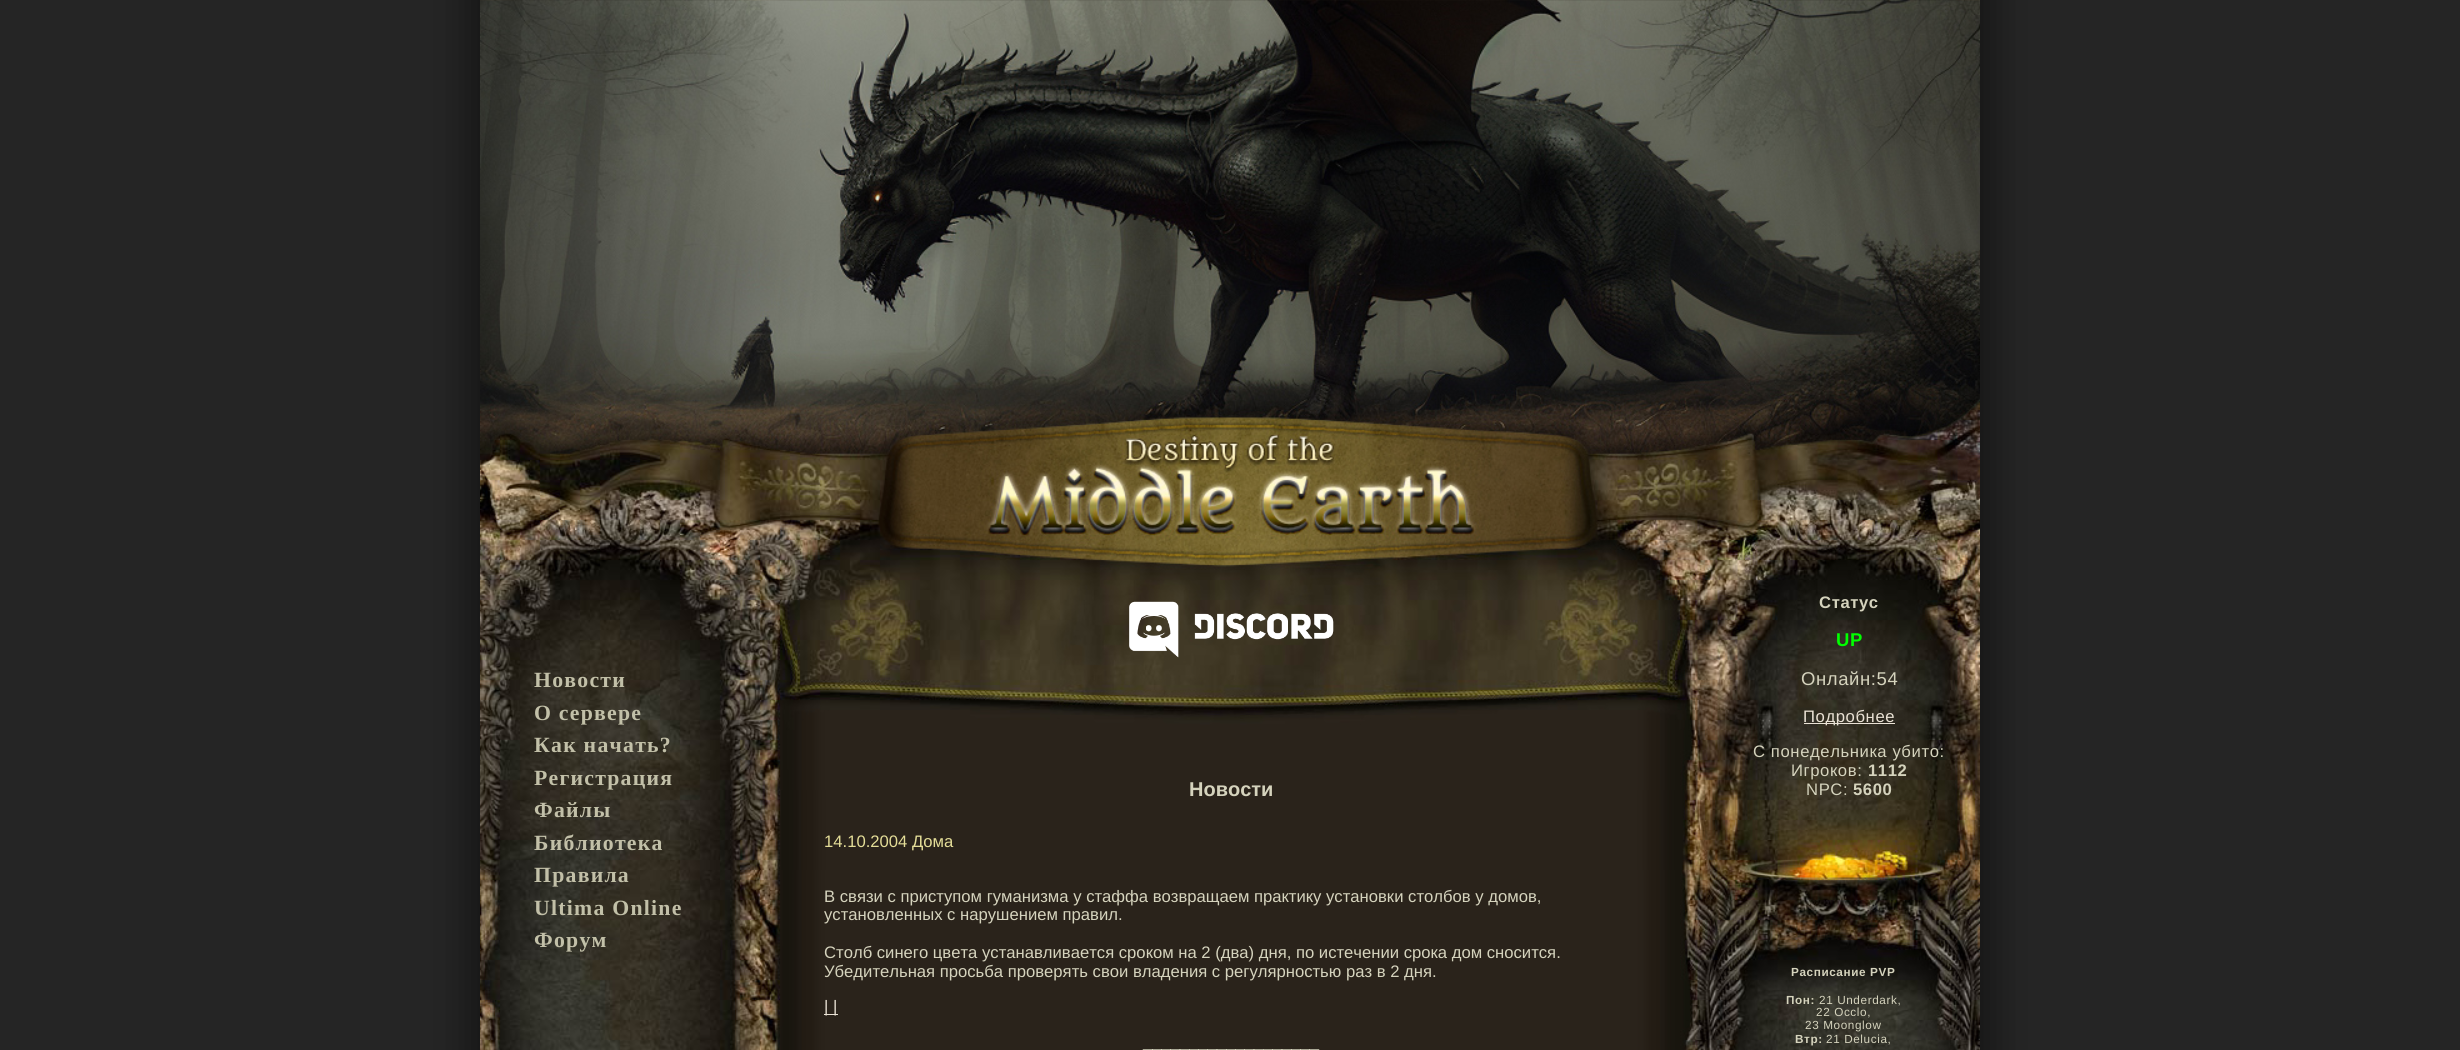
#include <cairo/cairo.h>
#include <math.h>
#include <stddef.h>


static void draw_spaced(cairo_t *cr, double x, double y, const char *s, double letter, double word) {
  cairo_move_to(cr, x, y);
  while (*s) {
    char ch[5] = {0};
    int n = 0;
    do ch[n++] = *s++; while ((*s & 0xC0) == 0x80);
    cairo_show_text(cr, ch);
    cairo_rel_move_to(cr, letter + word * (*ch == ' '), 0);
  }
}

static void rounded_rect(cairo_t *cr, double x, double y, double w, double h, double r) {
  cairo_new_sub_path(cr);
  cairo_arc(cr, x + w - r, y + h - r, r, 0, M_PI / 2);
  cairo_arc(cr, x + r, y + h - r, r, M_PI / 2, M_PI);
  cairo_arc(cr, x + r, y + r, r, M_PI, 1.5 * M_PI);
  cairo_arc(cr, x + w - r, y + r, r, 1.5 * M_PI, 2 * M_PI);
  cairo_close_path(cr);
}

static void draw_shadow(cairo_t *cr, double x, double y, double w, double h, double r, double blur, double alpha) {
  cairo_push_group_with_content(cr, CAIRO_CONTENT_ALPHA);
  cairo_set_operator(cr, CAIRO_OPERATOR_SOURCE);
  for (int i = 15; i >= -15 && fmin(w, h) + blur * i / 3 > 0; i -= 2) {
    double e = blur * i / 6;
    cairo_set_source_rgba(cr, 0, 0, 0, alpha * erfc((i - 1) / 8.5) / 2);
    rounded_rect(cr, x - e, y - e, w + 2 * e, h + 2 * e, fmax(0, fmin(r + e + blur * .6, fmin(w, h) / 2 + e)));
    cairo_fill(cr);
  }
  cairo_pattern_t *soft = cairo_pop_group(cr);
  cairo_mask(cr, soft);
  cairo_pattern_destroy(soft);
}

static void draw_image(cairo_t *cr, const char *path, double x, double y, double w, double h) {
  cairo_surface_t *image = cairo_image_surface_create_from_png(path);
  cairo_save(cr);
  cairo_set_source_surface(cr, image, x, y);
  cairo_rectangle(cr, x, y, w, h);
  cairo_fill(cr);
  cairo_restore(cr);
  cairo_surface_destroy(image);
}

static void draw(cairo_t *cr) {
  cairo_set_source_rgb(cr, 37 / 255.0, 37 / 255.0, 37 / 255.0);
  cairo_paint(cr);
  cairo_set_source_rgb(cr, 0, 0, 0);
  draw_shadow(cr, 468, -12, 1525, 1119, 0, 19, 0.45);
  draw_image(cr, "images/1.png", 480, 0, 1500, 1050);
  draw_image(cr, "images/2.png", 1129, 601, 205, 57);
  draw_image(cr, "images/3.png", 781, 790, 902, 80);
  cairo_set_source_rgb(cr, 234 / 255.0, 226 / 255.0, 213 / 255.0);
  cairo_rectangle(cr, 824, 1014, 14, 1);
  cairo_fill(cr);
  cairo_rectangle(cr, 1804, 723, 91, 1);
  cairo_fill(cr);
  cairo_select_font_face(cr, "Liberation Serif", CAIRO_FONT_SLANT_NORMAL, CAIRO_FONT_WEIGHT_BOLD);
  cairo_set_font_size(cr, 21.75);
  cairo_set_source_rgb(cr, 194 / 255.0, 192 / 255.0, 168 / 255.0);
  draw_spaced(cr, 534, 687, "Новости", 1.25, 0);
  draw_spaced(cr, 534, 720, "О сервере", 1.25, 0);
  draw_spaced(cr, 534, 752, "Как начать?", 1.25, 0);
  draw_spaced(cr, 534, 785, "Регистрация", 1.25, 0);
  draw_spaced(cr, 534, 817, "Файлы", 1.25, 0);
  draw_spaced(cr, 534, 850, "Библиотека", 1.25, 0);
  draw_spaced(cr, 534, 882, "Правила", 1.25, 0);
  draw_spaced(cr, 534, 915, "Ultima Online", 1.25, 0);
  draw_spaced(cr, 534, 947, "Форум", 1.25, 0);
  cairo_select_font_face(cr, "Liberation Sans", CAIRO_FONT_SLANT_NORMAL, CAIRO_FONT_WEIGHT_BOLD);
  cairo_set_font_size(cr, 20);
  cairo_set_source_rgb(cr, 213 / 255.0, 211 / 255.0, 189 / 255.0);
  cairo_move_to(cr, 1189, 796);
  cairo_show_text(cr, "Новости");
  cairo_select_font_face(cr, "Liberation Sans", CAIRO_FONT_SLANT_NORMAL, CAIRO_FONT_WEIGHT_NORMAL);
  cairo_set_font_size(cr, 16.65);
  cairo_set_source_rgb(cr, 228 / 255.0, 221 / 255.0, 152 / 255.0);
  cairo_move_to(cr, 824, 847);
  cairo_show_text(cr, "14.10.2004 Дома");
  cairo_set_source_rgb(cr, 213 / 255.0, 211 / 255.0, 189 / 255.0);
  cairo_move_to(cr, 824, 902);
  cairo_show_text(cr, "В связи с приступом гуманизма у стаффа возвращаем практику установки столбов у домов,");
  cairo_move_to(cr, 824, 920);
  cairo_show_text(cr, "установленных с нарушением правил.");
  cairo_move_to(cr, 824, 958);
  cairo_show_text(cr, "Столб синего цвета устанавливается сроком на 2 (два) дня, по истечении срока дом сносится.");
  cairo_move_to(cr, 824, 977);
  cairo_show_text(cr, "Убедительная просьба проверять свои владения с регулярностью раз в 2 дня.");
  cairo_set_source_rgb(cr, 234 / 255.0, 226 / 255.0, 213 / 255.0);
  cairo_move_to(cr, 824, 1012);
  cairo_show_text(cr, "| |");
  cairo_set_source_rgb(cr, 213 / 255.0, 211 / 255.0, 189 / 255.0);
  cairo_move_to(cr, 1143, 1047);
  cairo_show_text(cr, "___________________");
  cairo_select_font_face(cr, "Liberation Sans", CAIRO_FONT_SLANT_NORMAL, CAIRO_FONT_WEIGHT_BOLD);
  draw_spaced(cr, 1819, 608, "Статус", 0.6, 0);
  cairo_set_font_size(cr, 18.5);
  cairo_set_source_rgb(cr, 0, 1, 0);
  draw_spaced(cr, 1836, 646, "UP", 0.6, 0);
  cairo_select_font_face(cr, "Liberation Sans", CAIRO_FONT_SLANT_NORMAL, CAIRO_FONT_WEIGHT_NORMAL);
  cairo_set_source_rgb(cr, 213 / 255.0, 211 / 255.0, 189 / 255.0);
  draw_spaced(cr, 1801, 685, "Онлайн:54", 0.6, 0);
  cairo_set_font_size(cr, 16.65);
  cairo_set_source_rgb(cr, 234 / 255.0, 226 / 255.0, 213 / 255.0);
  draw_spaced(cr, 1803, 722, "Подробнее", 0.6, 0);
  cairo_set_source_rgb(cr, 213 / 255.0, 211 / 255.0, 189 / 255.0);
  draw_spaced(cr, 1753, 757, "С понедельника убито:", 0.6, 0);
  draw_spaced(cr, 1791, 776, "Игроков:", 0.6, 0);
  cairo_select_font_face(cr, "Liberation Sans", CAIRO_FONT_SLANT_NORMAL, CAIRO_FONT_WEIGHT_BOLD);
  draw_spaced(cr, 1868, 776, "1112", 0.6, 0);
  cairo_select_font_face(cr, "Liberation Sans", CAIRO_FONT_SLANT_NORMAL, CAIRO_FONT_WEIGHT_NORMAL);
  draw_spaced(cr, 1806, 795, "NPC:", 0.6, 0);
  cairo_select_font_face(cr, "Liberation Sans", CAIRO_FONT_SLANT_NORMAL, CAIRO_FONT_WEIGHT_BOLD);
  draw_spaced(cr, 1853, 795, "5600", 0.6, 0);
  cairo_set_font_size(cr, 11.75);
  draw_spaced(cr, 1791, 976, "Расписание PVP", 0.6, 0);
  draw_spaced(cr, 1786, 1004, "Пон:", 0.6, 0);
  cairo_select_font_face(cr, "Liberation Sans", CAIRO_FONT_SLANT_NORMAL, CAIRO_FONT_WEIGHT_NORMAL);
  draw_spaced(cr, 1819, 1004, "21 Underdark,", 0.6, 0);
  draw_spaced(cr, 1816, 1016, "22 Occlo,", 0.6, 0);
  draw_spaced(cr, 1805, 1029, "23 Moonglow", 0.6, 0);
  cairo_select_font_face(cr, "Liberation Sans", CAIRO_FONT_SLANT_NORMAL, CAIRO_FONT_WEIGHT_BOLD);
  draw_spaced(cr, 1795, 1043, "Втр:", 0.6, 0);
  cairo_select_font_face(cr, "Liberation Sans", CAIRO_FONT_SLANT_NORMAL, CAIRO_FONT_WEIGHT_NORMAL);
  draw_spaced(cr, 1826, 1043, "21 Delucia,", 0.6, 0);
}

int main(void) {
  cairo_surface_t *surface = cairo_image_surface_create(CAIRO_FORMAT_RGB24, 2460, 1050);
  cairo_t *cr = cairo_create(surface);
  cairo_font_options_t *options = cairo_font_options_create();
  cairo_font_options_set_hint_metrics(options, CAIRO_HINT_METRICS_OFF);
  cairo_font_options_set_hint_style(options, CAIRO_HINT_STYLE_NONE);
  cairo_set_font_options(cr, options);
  cairo_set_miter_limit(cr, 4);
  draw(cr);
  cairo_surface_write_to_png(surface, "out.png");
  cairo_font_options_destroy(options);
  cairo_destroy(cr);
  cairo_surface_destroy(surface);
  return 0;
}
